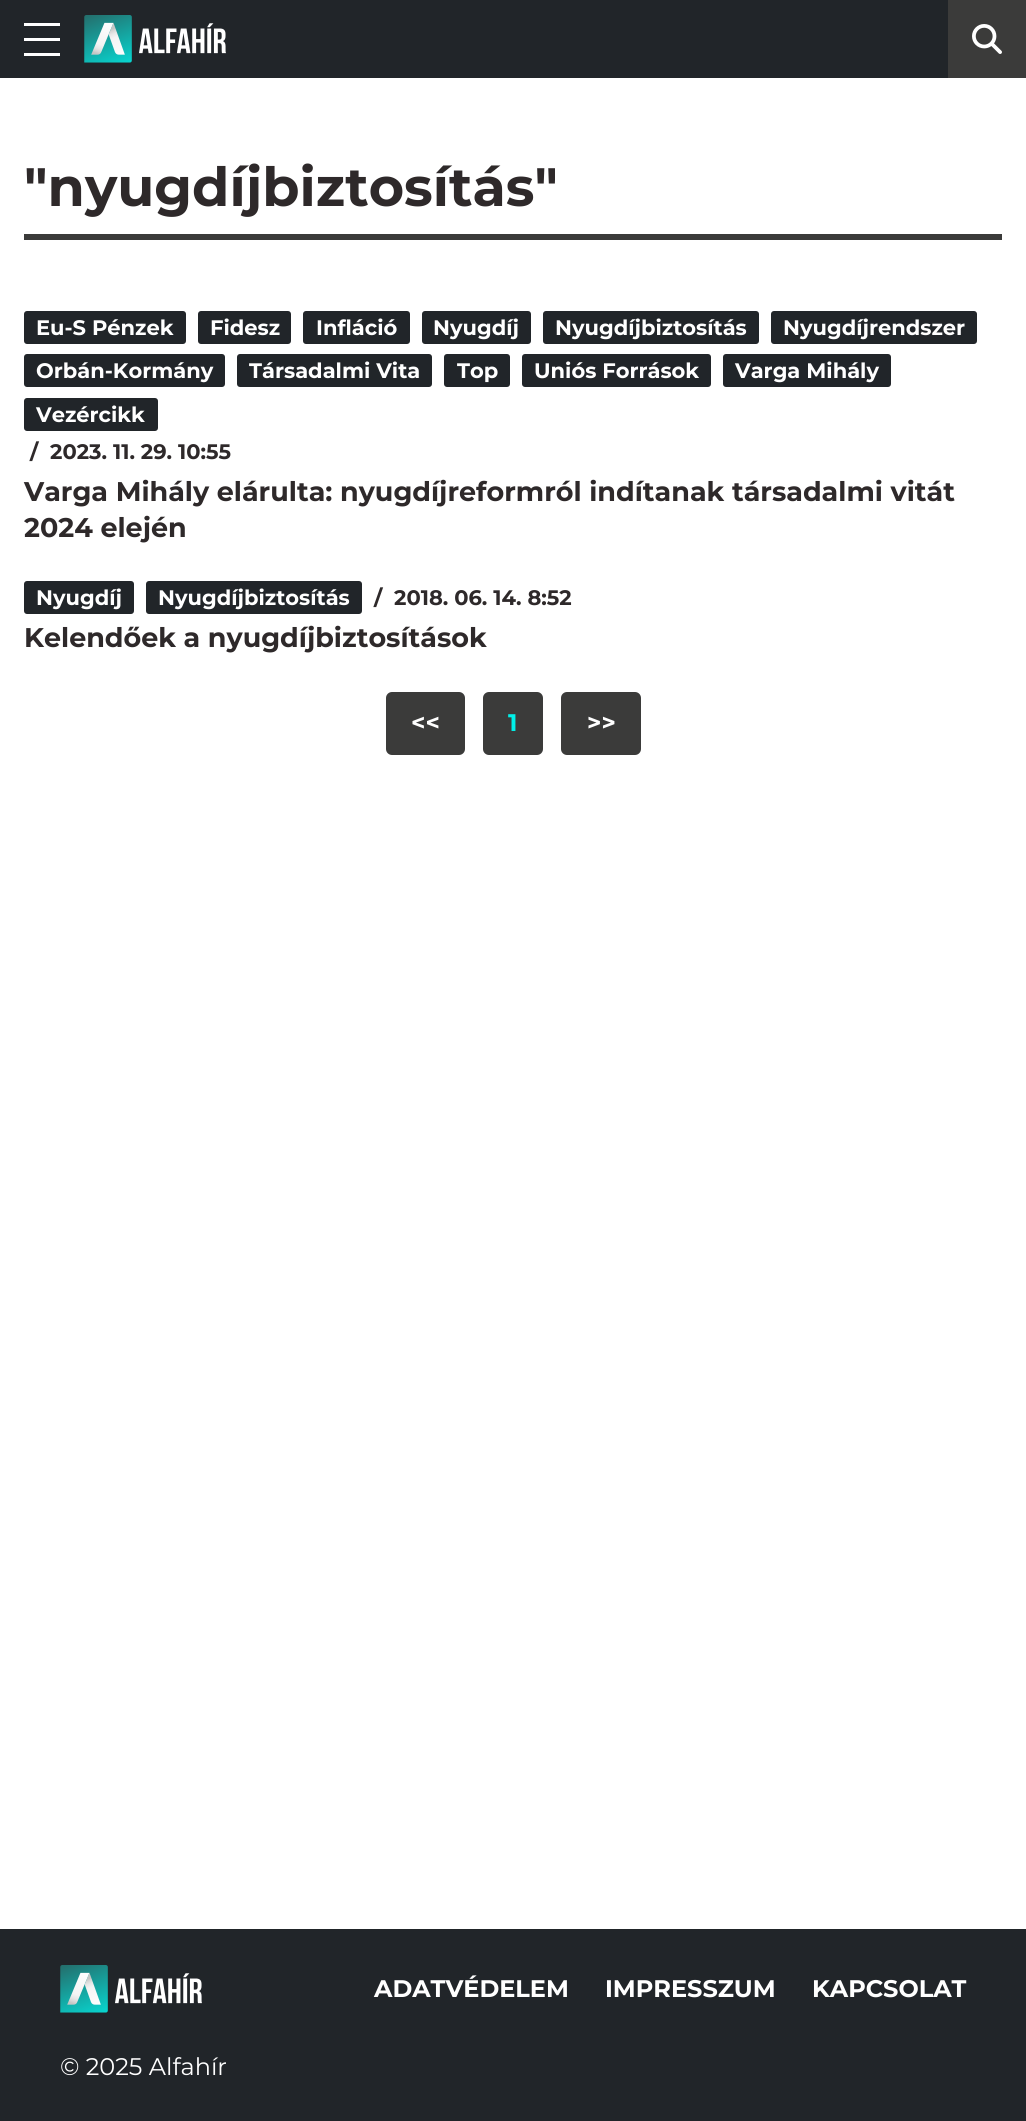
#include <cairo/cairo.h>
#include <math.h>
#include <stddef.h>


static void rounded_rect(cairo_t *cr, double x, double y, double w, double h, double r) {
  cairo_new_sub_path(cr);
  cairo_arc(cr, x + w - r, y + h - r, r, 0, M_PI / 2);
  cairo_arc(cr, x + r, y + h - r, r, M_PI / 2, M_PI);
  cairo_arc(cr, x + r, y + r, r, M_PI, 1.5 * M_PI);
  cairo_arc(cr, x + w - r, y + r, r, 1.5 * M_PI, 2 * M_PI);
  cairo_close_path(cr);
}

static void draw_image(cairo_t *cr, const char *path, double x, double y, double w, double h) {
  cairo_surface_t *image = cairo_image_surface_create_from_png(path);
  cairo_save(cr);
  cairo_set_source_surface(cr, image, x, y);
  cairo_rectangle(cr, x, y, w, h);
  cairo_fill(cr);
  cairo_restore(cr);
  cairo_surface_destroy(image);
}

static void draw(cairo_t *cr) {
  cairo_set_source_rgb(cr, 1, 1, 1);
  cairo_paint(cr);
  cairo_set_source_rgb(cr, 33 / 255.0, 37 / 255.0, 41 / 255.0);
  cairo_rectangle(cr, 0, 0, 948, 78);
  cairo_fill(cr);
  cairo_set_source_rgb(cr, 1, 1, 1);
  cairo_rectangle(cr, 24, 23, 36, 3);
  cairo_fill(cr);
  cairo_rectangle(cr, 24, 38, 36, 3);
  cairo_fill(cr);
  cairo_rectangle(cr, 24, 53, 36, 3);
  cairo_fill(cr);
  draw_image(cr, "images/1.png", 84, 15, 142, 48);
  cairo_set_source_rgb(cr, 59 / 255.0, 59 / 255.0, 58 / 255.0);
  cairo_rectangle(cr, 948, 0, 78, 78);
  cairo_fill(cr);
  draw_image(cr, "images/2.png", 972, 24, 30, 30);
  cairo_rectangle(cr, 24, 234, 978, 6);
  cairo_fill(cr);
  cairo_set_source_rgb(cr, 33 / 255.0, 37 / 255.0, 41 / 255.0);
  rounded_rect(cr, 24, 311, 162, 33, 3);
  cairo_fill(cr);
  rounded_rect(cr, 198, 311, 93, 33, 3);
  cairo_fill(cr);
  rounded_rect(cr, 303, 311, 107, 33, 3);
  cairo_fill(cr);
  rounded_rect(cr, 422, 311, 109, 33, 3);
  cairo_fill(cr);
  rounded_rect(cr, 543, 311, 216, 33, 3);
  cairo_fill(cr);
  rounded_rect(cr, 771, 311, 206, 33, 3);
  cairo_fill(cr);
  rounded_rect(cr, 24, 354, 201, 33, 3);
  cairo_fill(cr);
  rounded_rect(cr, 237, 354, 195, 33, 3);
  cairo_fill(cr);
  rounded_rect(cr, 444, 354, 66, 33, 3);
  cairo_fill(cr);
  rounded_rect(cr, 522, 354, 189, 33, 3);
  cairo_fill(cr);
  rounded_rect(cr, 723, 354, 168, 33, 3);
  cairo_fill(cr);
  rounded_rect(cr, 24, 398, 134, 33, 3);
  cairo_fill(cr);
  rounded_rect(cr, 24, 581, 110, 33, 3);
  cairo_fill(cr);
  rounded_rect(cr, 146, 581, 216, 33, 3);
  cairo_fill(cr);
  cairo_set_source_rgb(cr, 59 / 255.0, 59 / 255.0, 58 / 255.0);
  rounded_rect(cr, 387, 693, 77, 61, 5);
  cairo_fill_preserve(cr);
  cairo_stroke(cr);
  rounded_rect(cr, 484, 693, 58, 61, 5);
  cairo_fill_preserve(cr);
  cairo_stroke(cr);
  rounded_rect(cr, 562, 693, 78, 61, 5);
  cairo_fill_preserve(cr);
  cairo_stroke(cr);
  cairo_set_source_rgb(cr, 33 / 255.0, 37 / 255.0, 41 / 255.0);
  cairo_rectangle(cr, 0, 1929, 1026, 192);
  cairo_fill(cr);
  draw_image(cr, "images/1.png", 60, 1965, 142, 48);
  cairo_select_font_face(cr, "Montserrat", CAIRO_FONT_SLANT_NORMAL, CAIRO_FONT_WEIGHT_BOLD);
  cairo_set_font_size(cr, 54);
  cairo_set_source_rgb(cr, 46 / 255.0, 41 / 255.0, 42 / 255.0);
  cairo_move_to(cr, 24, 206);
  cairo_show_text(cr, "\"nyugdíjbiztosítás\"");
  cairo_set_font_size(cr, 21);
  cairo_set_source_rgb(cr, 1, 1, 1);
  cairo_move_to(cr, 36, 335);
  cairo_show_text(cr, "Eu-S Pénzek");
  cairo_move_to(cr, 210, 335);
  cairo_show_text(cr, "Fidesz");
  cairo_move_to(cr, 316, 335);
  cairo_show_text(cr, "Infláció");
  cairo_move_to(cr, 433, 335);
  cairo_show_text(cr, "Nyugdíj");
  cairo_move_to(cr, 555, 335);
  cairo_show_text(cr, "Nyugdíjbiztosítás");
  cairo_move_to(cr, 783, 335);
  cairo_show_text(cr, "Nyugdíjrendszer");
  cairo_move_to(cr, 36, 378);
  cairo_show_text(cr, "Orbán-Kormány");
  cairo_move_to(cr, 249, 378);
  cairo_show_text(cr, "Társadalmi Vita");
  cairo_move_to(cr, 457, 378);
  cairo_show_text(cr, "Top");
  cairo_move_to(cr, 534, 378);
  cairo_show_text(cr, "Uniós Források");
  cairo_move_to(cr, 735, 378);
  cairo_show_text(cr, "Varga Mihály");
  cairo_move_to(cr, 36, 422);
  cairo_show_text(cr, "Vezércikk");
  cairo_set_source_rgb(cr, 46 / 255.0, 41 / 255.0, 42 / 255.0);
  cairo_move_to(cr, 30, 459);
  cairo_show_text(cr, "/");
  cairo_move_to(cr, 50, 459);
  cairo_show_text(cr, "2023. 11. 29. 10:55");
  cairo_set_font_size(cr, 27);
  cairo_move_to(cr, 24, 501);
  cairo_show_text(cr, "Varga Mihály elárulta: nyugdíjreformról indítanak társadalmi vitát");
  cairo_move_to(cr, 24, 537);
  cairo_show_text(cr, "2024 elején");
  cairo_set_font_size(cr, 21);
  cairo_set_source_rgb(cr, 1, 1, 1);
  cairo_move_to(cr, 36, 605);
  cairo_show_text(cr, "Nyugdíj");
  cairo_move_to(cr, 158, 605);
  cairo_show_text(cr, "Nyugdíjbiztosítás");
  cairo_set_source_rgb(cr, 46 / 255.0, 41 / 255.0, 42 / 255.0);
  cairo_move_to(cr, 374, 605);
  cairo_show_text(cr, "/");
  cairo_move_to(cr, 394, 605);
  cairo_show_text(cr, "2018. 06. 14. 8:52");
  cairo_set_font_size(cr, 27);
  cairo_move_to(cr, 24, 647);
  cairo_show_text(cr, "Kelendőek a nyugdíjbiztosítások");
  cairo_set_font_size(cr, 24);
  cairo_set_source_rgb(cr, 1, 1, 1);
  cairo_move_to(cr, 411, 731);
  cairo_show_text(cr, "<<");
  cairo_set_source_rgb(cr, 0, 240 / 255.0, 232 / 255.0);
  cairo_move_to(cr, 508, 731);
  cairo_show_text(cr, "1");
  cairo_set_source_rgb(cr, 1, 1, 1);
  cairo_move_to(cr, 587, 731);
  cairo_show_text(cr, ">>");
  cairo_move_to(cr, 374, 1997);
  cairo_show_text(cr, "ADATVÉDELEM");
  cairo_move_to(cr, 605, 1997);
  cairo_show_text(cr, "IMPRESSZUM");
  cairo_move_to(cr, 812, 1997);
  cairo_show_text(cr, "KAPCSOLAT");
  cairo_select_font_face(cr, "Montserrat", CAIRO_FONT_SLANT_NORMAL, CAIRO_FONT_WEIGHT_NORMAL);
  cairo_move_to(cr, 60, 2075);
  cairo_show_text(cr, "© 2025 Alfahír");
}

int main(void) {
  cairo_surface_t *surface = cairo_image_surface_create(CAIRO_FORMAT_RGB24, 1026, 2121);
  cairo_t *cr = cairo_create(surface);
  cairo_font_options_t *options = cairo_font_options_create();
  cairo_font_options_set_hint_metrics(options, CAIRO_HINT_METRICS_OFF);
  cairo_font_options_set_hint_style(options, CAIRO_HINT_STYLE_NONE);
  cairo_set_font_options(cr, options);
  cairo_set_miter_limit(cr, 4);
  draw(cr);
  cairo_surface_write_to_png(surface, "out.png");
  cairo_font_options_destroy(options);
  cairo_destroy(cr);
  cairo_surface_destroy(surface);
  return 0;
}
